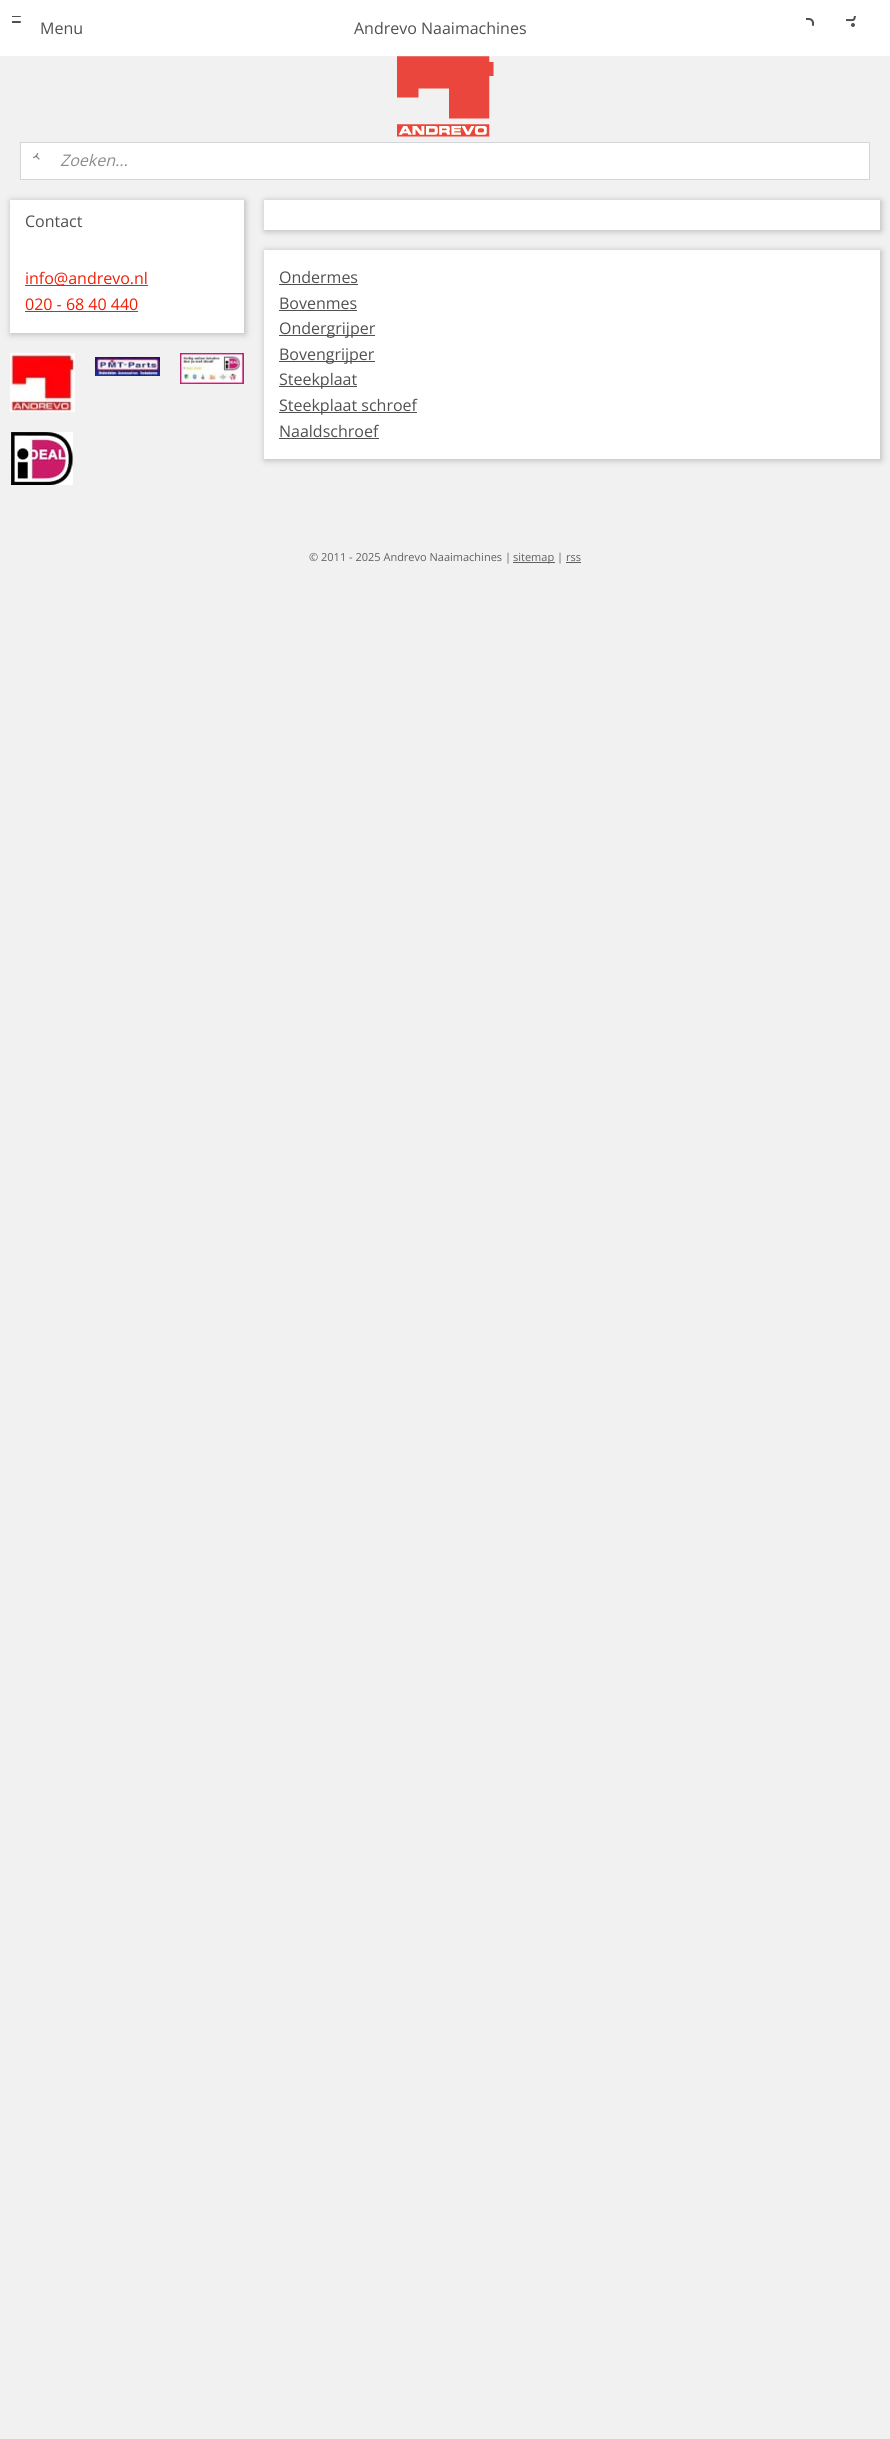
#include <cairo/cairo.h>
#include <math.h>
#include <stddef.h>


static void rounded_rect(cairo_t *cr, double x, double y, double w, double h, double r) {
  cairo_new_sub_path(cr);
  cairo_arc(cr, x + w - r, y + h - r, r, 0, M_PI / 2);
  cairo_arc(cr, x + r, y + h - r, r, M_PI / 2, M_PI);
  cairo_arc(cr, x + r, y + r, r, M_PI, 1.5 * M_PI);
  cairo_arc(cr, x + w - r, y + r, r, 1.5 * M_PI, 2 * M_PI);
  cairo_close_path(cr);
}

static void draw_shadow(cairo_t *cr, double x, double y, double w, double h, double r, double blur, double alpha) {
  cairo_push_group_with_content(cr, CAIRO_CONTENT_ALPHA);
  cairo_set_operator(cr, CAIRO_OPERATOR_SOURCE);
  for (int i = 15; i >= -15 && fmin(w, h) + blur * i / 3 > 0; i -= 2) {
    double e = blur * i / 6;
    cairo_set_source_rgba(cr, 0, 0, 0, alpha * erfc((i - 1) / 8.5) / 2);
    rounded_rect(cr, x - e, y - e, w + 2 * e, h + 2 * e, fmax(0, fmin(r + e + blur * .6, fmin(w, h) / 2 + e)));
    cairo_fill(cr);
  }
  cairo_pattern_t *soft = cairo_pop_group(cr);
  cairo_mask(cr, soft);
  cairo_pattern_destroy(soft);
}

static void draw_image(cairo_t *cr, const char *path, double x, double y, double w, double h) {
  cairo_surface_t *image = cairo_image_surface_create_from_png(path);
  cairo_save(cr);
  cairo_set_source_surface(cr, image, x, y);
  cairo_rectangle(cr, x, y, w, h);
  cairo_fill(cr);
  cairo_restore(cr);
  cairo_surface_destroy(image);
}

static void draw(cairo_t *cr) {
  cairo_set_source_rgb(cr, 241 / 255.0, 241 / 255.0, 241 / 255.0);
  cairo_paint(cr);
  cairo_set_source_rgb(cr, 1, 1, 1);
  cairo_rectangle(cr, 0, 0, 890, 56);
  cairo_fill(cr);
  draw_image(cr, "images/1.png", 12, 16, 9, 7);
  draw_image(cr, "images/2.png", 806, 18, 8, 8);
  draw_image(cr, "images/3.png", 846, 16, 10, 11);
  draw_image(cr, "images/4.png", 397, 56, 97, 81);
  cairo_rectangle(cr, 20.5, 142.5, 849, 37);
  cairo_fill_preserve(cr);
  cairo_set_source_rgb(cr, 211 / 255.0, 213 / 255.0, 217 / 255.0);
  cairo_set_line_width(cr, 1);
  cairo_stroke(cr);
  draw_image(cr, "images/5.png", 33, 153, 7, 7);
  cairo_set_source_rgb(cr, 0, 0, 0);
  draw_shadow(cr, 11, 201, 234, 133, 0, 3.5, 0.25);
  cairo_set_source_rgb(cr, 1, 1, 1);
  cairo_rectangle(cr, 10, 200, 234, 133);
  cairo_fill(cr);
  cairo_set_source_rgb(cr, 242 / 255.0, 29 / 255.0, 5 / 255.0);
  cairo_rectangle(cr, 25, 285, 123, 1);
  cairo_fill(cr);
  cairo_rectangle(cr, 25, 311, 113, 1);
  cairo_fill(cr);
  draw_image(cr, "images/6.png", 10, 353, 65, 59);
  draw_image(cr, "images/7.png", 95, 357, 65, 19);
  draw_image(cr, "images/8.png", 180, 353, 64, 31);
  draw_image(cr, "images/9.png", 11, 432, 62, 53);
  cairo_set_source_rgb(cr, 0, 0, 0);
  draw_shadow(cr, 265, 201, 616, 30, 0, 3.5, 0.25);
  cairo_set_source_rgb(cr, 1, 1, 1);
  cairo_rectangle(cr, 264, 200, 616, 30);
  cairo_fill(cr);
  cairo_set_source_rgb(cr, 0, 0, 0);
  draw_shadow(cr, 265, 251, 616, 209, 0, 3.5, 0.25);
  cairo_set_source_rgb(cr, 1, 1, 1);
  cairo_rectangle(cr, 264, 250, 616, 209);
  cairo_fill(cr);
  cairo_set_source_rgb(cr, 80 / 255.0, 80 / 255.0, 80 / 255.0);
  cairo_rectangle(cr, 279, 284, 79, 1);
  cairo_fill(cr);
  cairo_rectangle(cr, 279, 310, 78, 1);
  cairo_fill(cr);
  cairo_rectangle(cr, 279, 335, 96, 1);
  cairo_fill(cr);
  cairo_rectangle(cr, 279, 361, 96, 1);
  cairo_fill(cr);
  cairo_rectangle(cr, 279, 386, 78, 1);
  cairo_fill(cr);
  cairo_rectangle(cr, 279, 412, 138, 1);
  cairo_fill(cr);
  cairo_rectangle(cr, 279, 438, 100, 1);
  cairo_fill(cr);
  cairo_set_source_rgb(cr, 96 / 255.0, 96 / 255.0, 96 / 255.0);
  cairo_rectangle(cr, 513, 562, 42, 1);
  cairo_fill(cr);
  cairo_rectangle(cr, 566, 562, 15, 1);
  cairo_fill(cr);
  cairo_select_font_face(cr, "Open Sans", CAIRO_FONT_SLANT_NORMAL, CAIRO_FONT_WEIGHT_NORMAL);
  cairo_set_font_size(cr, 16);
  cairo_set_source_rgb(cr, 80 / 255.0, 80 / 255.0, 80 / 255.0);
  cairo_move_to(cr, 40, 34);
  cairo_show_text(cr, "Menu");
  cairo_move_to(cr, 354, 34);
  cairo_show_text(cr, "Andrevo Naaimachines");
  cairo_select_font_face(cr, "Open Sans", CAIRO_FONT_SLANT_ITALIC, CAIRO_FONT_WEIGHT_NORMAL);
  cairo_set_source_rgb(cr, 137 / 255.0, 140 / 255.0, 145 / 255.0);
  cairo_move_to(cr, 60, 166);
  cairo_show_text(cr, "Zoeken...");
  cairo_select_font_face(cr, "Open Sans", CAIRO_FONT_SLANT_NORMAL, CAIRO_FONT_WEIGHT_NORMAL);
  cairo_set_source_rgb(cr, 80 / 255.0, 80 / 255.0, 80 / 255.0);
  cairo_move_to(cr, 25, 227);
  cairo_show_text(cr, "Contact");
  cairo_set_source_rgb(cr, 242 / 255.0, 29 / 255.0, 5 / 255.0);
  cairo_move_to(cr, 25, 284);
  cairo_show_text(cr, "info@andrevo.nl");
  cairo_move_to(cr, 25, 310);
  cairo_show_text(cr, "020 - 68 40 440");
  cairo_set_source_rgb(cr, 80 / 255.0, 80 / 255.0, 80 / 255.0);
  cairo_move_to(cr, 279, 283);
  cairo_show_text(cr, "Ondermes");
  cairo_move_to(cr, 279, 309);
  cairo_show_text(cr, "Bovenmes");
  cairo_move_to(cr, 279, 334);
  cairo_show_text(cr, "Ondergrijper");
  cairo_move_to(cr, 279, 360);
  cairo_show_text(cr, "Bovengrijper");
  cairo_move_to(cr, 279, 385);
  cairo_show_text(cr, "Steekplaat");
  cairo_move_to(cr, 279, 411);
  cairo_show_text(cr, "Steekplaat schroef");
  cairo_move_to(cr, 279, 437);
  cairo_show_text(cr, "Naaldschroef");
  cairo_set_font_size(cr, 11);
  cairo_set_source_rgb(cr, 96 / 255.0, 96 / 255.0, 96 / 255.0);
  cairo_move_to(cr, 309, 561);
  cairo_show_text(cr, "© 2011 - 2025 Andrevo Naaimachines |");
  cairo_move_to(cr, 513, 561);
  cairo_show_text(cr, "sitemap | rss");
}

int main(void) {
  cairo_surface_t *surface = cairo_image_surface_create(CAIRO_FORMAT_RGB24, 890, 2439);
  cairo_t *cr = cairo_create(surface);
  cairo_font_options_t *options = cairo_font_options_create();
  cairo_font_options_set_hint_metrics(options, CAIRO_HINT_METRICS_OFF);
  cairo_font_options_set_hint_style(options, CAIRO_HINT_STYLE_NONE);
  cairo_set_font_options(cr, options);
  cairo_set_miter_limit(cr, 4);
  draw(cr);
  cairo_surface_write_to_png(surface, "out.png");
  cairo_font_options_destroy(options);
  cairo_destroy(cr);
  cairo_surface_destroy(surface);
  return 0;
}
